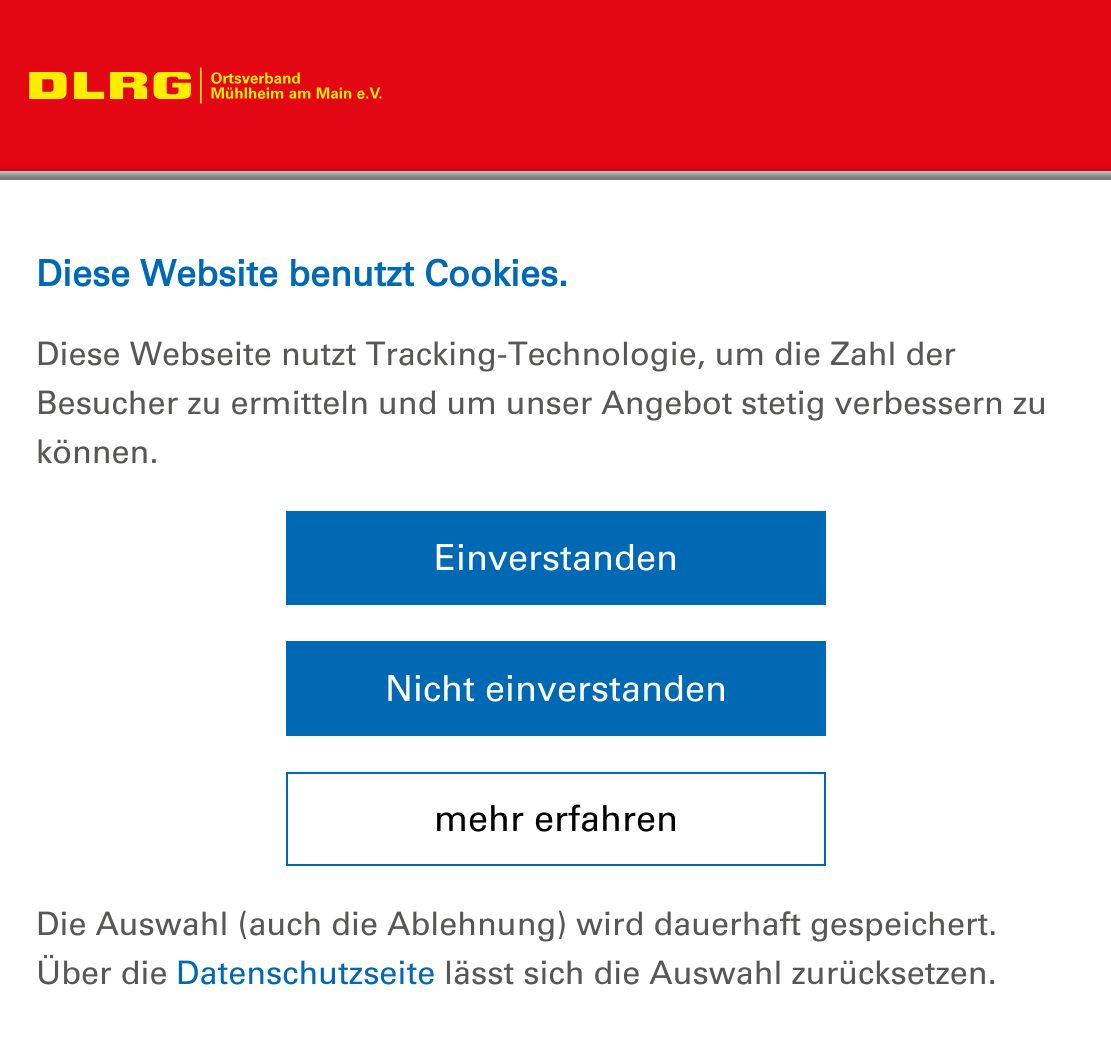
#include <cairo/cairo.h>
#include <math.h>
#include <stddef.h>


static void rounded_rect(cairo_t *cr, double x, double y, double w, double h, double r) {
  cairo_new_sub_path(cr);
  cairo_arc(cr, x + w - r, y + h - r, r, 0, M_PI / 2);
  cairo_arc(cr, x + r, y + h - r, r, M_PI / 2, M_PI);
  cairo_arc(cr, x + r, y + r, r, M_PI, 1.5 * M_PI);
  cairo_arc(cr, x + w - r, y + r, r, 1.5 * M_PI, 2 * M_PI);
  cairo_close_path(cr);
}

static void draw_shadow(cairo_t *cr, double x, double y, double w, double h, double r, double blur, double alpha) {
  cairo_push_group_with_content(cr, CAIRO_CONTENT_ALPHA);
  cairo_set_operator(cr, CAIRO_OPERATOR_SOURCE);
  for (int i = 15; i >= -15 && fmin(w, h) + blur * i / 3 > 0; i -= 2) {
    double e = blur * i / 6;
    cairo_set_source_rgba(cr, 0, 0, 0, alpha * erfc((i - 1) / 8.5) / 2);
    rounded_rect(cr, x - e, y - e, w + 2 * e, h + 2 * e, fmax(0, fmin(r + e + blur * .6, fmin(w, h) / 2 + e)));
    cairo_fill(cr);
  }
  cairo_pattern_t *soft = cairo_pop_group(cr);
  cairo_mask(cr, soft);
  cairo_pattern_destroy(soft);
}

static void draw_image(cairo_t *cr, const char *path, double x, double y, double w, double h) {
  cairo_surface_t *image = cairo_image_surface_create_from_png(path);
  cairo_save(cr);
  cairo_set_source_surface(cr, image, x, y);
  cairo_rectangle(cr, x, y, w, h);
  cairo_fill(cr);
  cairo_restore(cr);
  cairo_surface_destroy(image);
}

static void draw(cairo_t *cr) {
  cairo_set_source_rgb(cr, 235 / 255.0, 235 / 255.0, 235 / 255.0);
  cairo_paint(cr);
  cairo_set_source_rgb(cr, 227 / 255.0, 6 / 255.0, 19 / 255.0);
  cairo_rectangle(cr, 0, 0, 1111, 171);
  cairo_fill(cr);
  draw_image(cr, "images/1.png", 29, 67, 353, 37);
  cairo_set_source_rgb(cr, 0, 0, 0);
  draw_shadow(cr, -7, 173, 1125, 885, 0, 3.5, 0.5);
  cairo_set_source_rgb(cr, 1, 1, 1);
  cairo_rectangle(cr, 0, 180, 1111, 869);
  cairo_fill(cr);
  cairo_set_source_rgb(cr, 0, 105 / 255.0, 180 / 255.0);
  cairo_rectangle(cr, 286, 511, 540, 94);
  cairo_fill(cr);
  cairo_rectangle(cr, 286, 641, 540, 95);
  cairo_fill(cr);
  cairo_rectangle(cr, 287, 773, 538, 92);
  cairo_stroke(cr);
  cairo_select_font_face(cr, "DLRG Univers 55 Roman", CAIRO_FONT_SLANT_NORMAL, CAIRO_FONT_WEIGHT_BOLD);
  cairo_set_font_size(cr, 36);
  cairo_move_to(cr, 36, 286);
  cairo_show_text(cr, "Diese Website benutzt Cookies.");
  cairo_select_font_face(cr, "DLRG Univers 55 Roman", CAIRO_FONT_SLANT_NORMAL, CAIRO_FONT_WEIGHT_NORMAL);
  cairo_set_font_size(cr, 32.4);
  cairo_set_source_rgb(cr, 87 / 255.0, 87 / 255.0, 86 / 255.0);
  cairo_move_to(cr, 36, 365);
  cairo_show_text(cr, "Diese Webseite nutzt Tracking-Technologie, um die Zahl der");
  cairo_move_to(cr, 36, 414);
  cairo_show_text(cr, "Besucher zu ermitteln und um unser Angebot");
  cairo_move_to(cr, 741, 414);
  cairo_show_text(cr, "stetig verbessern zu");
  cairo_move_to(cr, 36, 463);
  cairo_show_text(cr, "können.");
  cairo_set_font_size(cr, 36);
  cairo_set_source_rgb(cr, 1, 1, 1);
  cairo_move_to(cr, 434, 570);
  cairo_show_text(cr, "Einverstanden");
  cairo_move_to(cr, 385, 701);
  cairo_show_text(cr, "Nicht einverstanden");
  cairo_set_source_rgb(cr, 0, 0, 0);
  cairo_move_to(cr, 434, 831);
  cairo_show_text(cr, "mehr erfahren");
  cairo_set_font_size(cr, 32.4);
  cairo_set_source_rgb(cr, 87 / 255.0, 87 / 255.0, 86 / 255.0);
  cairo_move_to(cr, 36, 935);
  cairo_show_text(cr, "Die Auswahl (auch die Ablehnung) wird dauerhaft gespeichert.");
  cairo_move_to(cr, 36, 984);
  cairo_show_text(cr, "Über die");
  cairo_set_source_rgb(cr, 0, 105 / 255.0, 180 / 255.0);
  cairo_move_to(cr, 176, 984);
  cairo_show_text(cr, "Datenschutzseite");
  cairo_set_source_rgb(cr, 87 / 255.0, 87 / 255.0, 86 / 255.0);
  cairo_move_to(cr, 444, 984);
  cairo_show_text(cr, "lässt sich die Auswahl zurücksetzen.");
}

int main(void) {
  cairo_surface_t *surface = cairo_image_surface_create(CAIRO_FORMAT_RGB24, 1111, 1049);
  cairo_t *cr = cairo_create(surface);
  cairo_font_options_t *options = cairo_font_options_create();
  cairo_font_options_set_hint_metrics(options, CAIRO_HINT_METRICS_OFF);
  cairo_font_options_set_hint_style(options, CAIRO_HINT_STYLE_NONE);
  cairo_set_font_options(cr, options);
  cairo_set_miter_limit(cr, 4);
  draw(cr);
  cairo_surface_write_to_png(surface, "out.png");
  cairo_font_options_destroy(options);
  cairo_destroy(cr);
  cairo_surface_destroy(surface);
  return 0;
}
